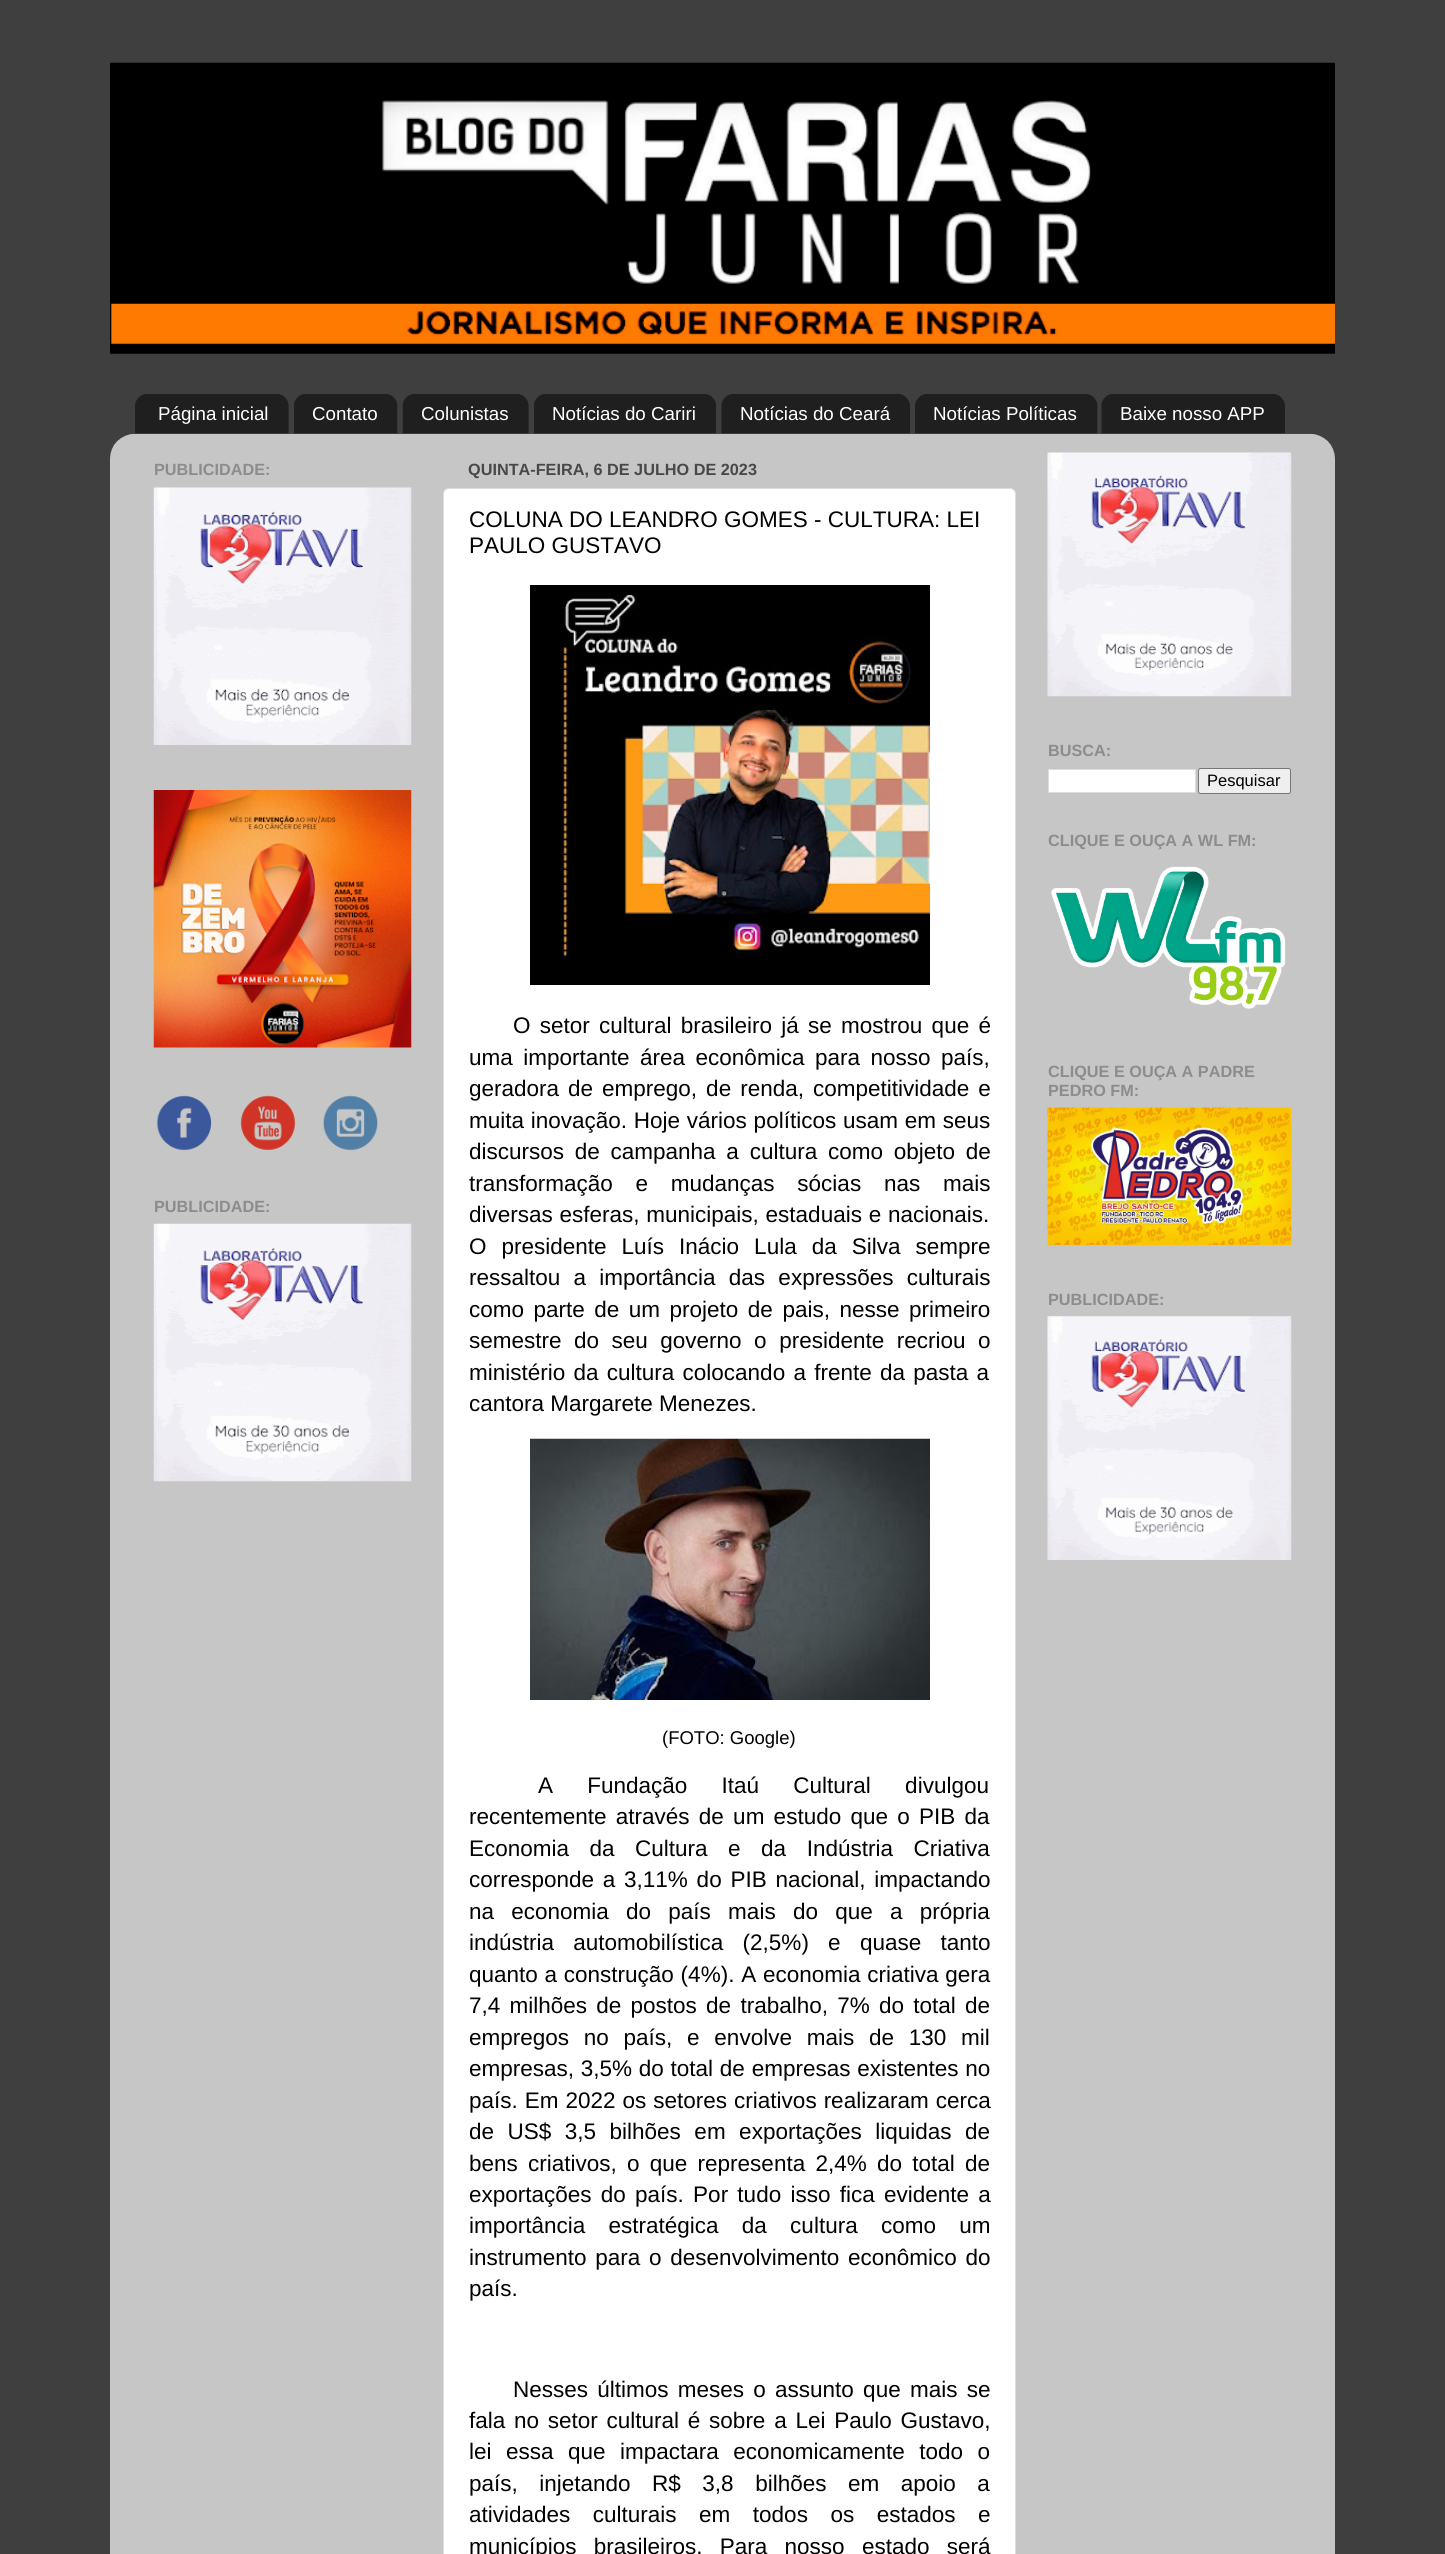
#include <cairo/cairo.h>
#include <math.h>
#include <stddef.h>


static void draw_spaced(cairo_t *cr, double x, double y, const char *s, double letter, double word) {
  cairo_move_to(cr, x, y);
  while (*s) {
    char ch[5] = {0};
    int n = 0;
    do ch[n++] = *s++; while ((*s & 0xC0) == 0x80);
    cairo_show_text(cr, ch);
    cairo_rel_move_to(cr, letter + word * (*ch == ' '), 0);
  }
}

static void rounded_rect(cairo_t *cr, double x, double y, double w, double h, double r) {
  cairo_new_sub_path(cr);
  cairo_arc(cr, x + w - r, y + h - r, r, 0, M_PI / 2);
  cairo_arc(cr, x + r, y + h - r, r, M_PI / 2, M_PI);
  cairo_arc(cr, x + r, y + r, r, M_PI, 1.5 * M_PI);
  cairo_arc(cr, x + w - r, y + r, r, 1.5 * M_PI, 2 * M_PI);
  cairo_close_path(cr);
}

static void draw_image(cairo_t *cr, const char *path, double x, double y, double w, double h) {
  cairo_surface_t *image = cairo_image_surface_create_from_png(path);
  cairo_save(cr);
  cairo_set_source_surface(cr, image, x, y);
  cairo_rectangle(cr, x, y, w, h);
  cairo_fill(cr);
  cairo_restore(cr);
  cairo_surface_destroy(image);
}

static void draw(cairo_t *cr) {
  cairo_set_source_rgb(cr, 63 / 255.0, 63 / 255.0, 63 / 255.0);
  cairo_paint(cr);
  draw_image(cr, "images/1.png", 110, 62, 1225, 292);
  draw_image(cr, "images/2.png", 135, 394, 154, 40);
  draw_image(cr, "images/3.png", 294, 394, 104, 40);
  draw_image(cr, "images/4.png", 402, 394, 127, 40);
  draw_image(cr, "images/5.png", 534, 394, 182, 40);
  draw_image(cr, "images/6.png", 721, 394, 189, 40);
  draw_image(cr, "images/7.png", 915, 394, 183, 40);
  draw_image(cr, "images/8.png", 1101, 394, 184, 40);
  draw_image(cr, "images/9.png", 110, 433, 1225, 2121);
  draw_image(cr, "images/10.png", 153, 487, 259, 258);
  draw_image(cr, "images/11.png", 153, 790, 259, 258);
  draw_image(cr, "images/12.png", 156, 1095, 56, 56);
  draw_image(cr, "images/13.png", 240, 1095, 56, 56);
  draw_image(cr, "images/14.png", 323, 1095, 55, 56);
  draw_image(cr, "images/15.png", 153, 1223, 259, 259);
  cairo_set_source_rgb(cr, 1, 1, 1);
  rounded_rect(cr, 443.5, 488.5, 572, 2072, 5.5);
  cairo_fill_preserve(cr);
  cairo_set_source_rgb(cr, 222 / 255.0, 222 / 255.0, 222 / 255.0);
  cairo_set_line_width(cr, 1);
  cairo_stroke(cr);
  draw_image(cr, "images/16.png", 530, 585, 400, 400);
  draw_image(cr, "images/17.png", 530, 1438, 400, 262);
  draw_image(cr, "images/18.png", 1047, 452, 245, 245);
  cairo_set_source_rgb(cr, 1, 1, 1);
  cairo_rectangle(cr, 1048.5, 769.5, 147, 23);
  cairo_fill_preserve(cr);
  cairo_set_source_rgb(cr, 221 / 255.0, 221 / 255.0, 221 / 255.0);
  cairo_stroke(cr);
  cairo_set_source_rgb(cr, 239 / 255.0, 239 / 255.0, 239 / 255.0);
  rounded_rect(cr, 1198.5, 768.5, 92, 25, 2);
  cairo_fill_preserve(cr);
  cairo_set_source_rgb(cr, 118 / 255.0, 118 / 255.0, 118 / 255.0);
  cairo_stroke(cr);
  draw_image(cr, "images/19.png", 1051, 866, 235, 143);
  draw_image(cr, "images/20.png", 1047, 1107, 245, 138);
  draw_image(cr, "images/21.png", 1047, 1316, 245, 244);
  cairo_select_font_face(cr, "Liberation Sans", CAIRO_FONT_SLANT_NORMAL, CAIRO_FONT_WEIGHT_NORMAL);
  cairo_set_font_size(cr, 18.75);
  cairo_set_source_rgb(cr, 1, 1, 1);
  cairo_move_to(cr, 158, 420);
  cairo_show_text(cr, "Página inicial");
  cairo_move_to(cr, 312, 420);
  cairo_show_text(cr, "Contato");
  cairo_move_to(cr, 421, 420);
  cairo_show_text(cr, "Colunistas");
  cairo_move_to(cr, 552, 420);
  cairo_show_text(cr, "Notícias do Cariri");
  cairo_move_to(cr, 740, 420);
  cairo_show_text(cr, "Notícias do Ceará");
  cairo_move_to(cr, 933, 420);
  cairo_show_text(cr, "Notícias Políticas");
  cairo_move_to(cr, 1120, 420);
  cairo_show_text(cr, "Baixe nosso APP");
  cairo_select_font_face(cr, "Liberation Sans", CAIRO_FONT_SLANT_NORMAL, CAIRO_FONT_WEIGHT_BOLD);
  cairo_set_font_size(cr, 16.25);
  cairo_set_source_rgb(cr, 140 / 255.0, 140 / 255.0, 140 / 255.0);
  cairo_move_to(cr, 154, 475);
  cairo_show_text(cr, "PUBLICIDADE:");
  cairo_move_to(cr, 154, 1212);
  cairo_show_text(cr, "PUBLICIDADE:");
  cairo_set_source_rgb(cr, 72 / 255.0, 72 / 255.0, 72 / 255.0);
  cairo_move_to(cr, 468, 475);
  cairo_show_text(cr, "QUINTA-FEIRA, 6 DE JULHO DE 2023");
  cairo_select_font_face(cr, "Liberation Sans", CAIRO_FONT_SLANT_NORMAL, CAIRO_FONT_WEIGHT_NORMAL);
  cairo_set_font_size(cr, 22.5);
  cairo_set_source_rgb(cr, 0, 0, 0);
  cairo_move_to(cr, 469, 527);
  cairo_show_text(cr, "COLUNA DO LEANDRO GOMES - CULTURA: LEI");
  cairo_move_to(cr, 469, 553);
  cairo_show_text(cr, "PAULO GUSTAVO");
  draw_spaced(cr, 513, 1033, "O setor cultural brasileiro já se mostrou que é", 0, 3);
  draw_spaced(cr, 469, 1065, "uma importante área econômica para nosso país,", 0, 4.25);
  draw_spaced(cr, 469, 1096, "geradora de emprego, de renda, competitividade e", 0, 2.75);
  draw_spaced(cr, 469, 1128, "muita inovação. Hoje vários políticos usam em seus", 0, 0.5);
  draw_spaced(cr, 469, 1159, "discursos de campanha a cultura como objeto de", 0, 4.5);
  draw_spaced(cr, 469, 1191, "transformação e mudanças sócias nas mais", 0, 16.5);
  draw_spaced(cr, 469, 1222, "diversas esferas, municipais, estaduais e nacionais.", 0, 0.5);
  draw_spaced(cr, 469, 1254, "O presidente Luís Inácio Lula da Silva sempre", 0, 8.75);
  draw_spaced(cr, 469, 1285, "ressaltou a importância das expressões culturais", 0, 7);
  draw_spaced(cr, 469, 1317, "como parte de um projeto de pais, nesse primeiro", 0, 3.25);
  draw_spaced(cr, 469, 1348, "semestre do seu governo o presidente recriou o", 0, 6.25);
  draw_spaced(cr, 469, 1380, "ministério da cultura colocando a frente da pasta a", 0, 2);
  cairo_move_to(cr, 469, 1411);
  cairo_show_text(cr, "cantora Margarete Menezes.");
  cairo_set_font_size(cr, 18.5);
  cairo_move_to(cr, 662, 1744);
  cairo_show_text(cr, "(FOTO: Google)");
  cairo_set_font_size(cr, 22.5);
  draw_spaced(cr, 538, 1793, "A Fundação Itaú Cultural divulgou", 0, 28);
  draw_spaced(cr, 469, 1824, "recentemente através de um estudo que o PIB da", 0, 3);
  draw_spaced(cr, 469, 1856, "Economia da Cultura e da Indústria Criativa", 0, 14.25);
  draw_spaced(cr, 469, 1887, "corresponde a 3,11% do PIB nacional, impactando", 0, 2.5);
  draw_spaced(cr, 469, 1919, "na economia do país mais do que a própria", 0, 11);
  draw_spaced(cr, 469, 1950, "indústria automobilística (2,5%) e quase tanto", 0, 13);
  draw_spaced(cr, 469, 1982, "quanto a construção (4%). A economia criativa gera", 0, 0.5);
  draw_spaced(cr, 469, 2013, "7,4 milhões de postos de trabalho, 7% do total de", 0, 3);
  draw_spaced(cr, 469, 2045, "empregos no país, e envolve mais de 130 mil", 0, 8.5);
  draw_spaced(cr, 469, 2076, "empresas, 3,5% do total de empresas existentes no", 0, 0.5);
  draw_spaced(cr, 469, 2108, "país. Em 2022 os setores criativos realizaram cerca", 0, 0.75);
  draw_spaced(cr, 469, 2139, "de US$ 3,5 bilhões em exportações liquidas de", 0, 7.25);
  draw_spaced(cr, 469, 2171, "bens criativos, o que representa 2,4% do total de", 0, 4);
  draw_spaced(cr, 469, 2202, "exportações do país. Por tudo isso fica evidente a", 0, 3);
  draw_spaced(cr, 469, 2233, "importância estratégica da cultura como um", 0, 17);
  draw_spaced(cr, 469, 2265, "instrumento para o desenvolvimento econômico do", 0, 2.5);
  cairo_move_to(cr, 469, 2296);
  cairo_show_text(cr, "país.");
  draw_spaced(cr, 513, 2397, "Nesses últimos meses o assunto que mais se", 0, 3);
  draw_spaced(cr, 469, 2428, "fala no setor cultural é sobre a Lei Paulo Gustavo,", 0, 2.5);
  draw_spaced(cr, 469, 2459, "lei essa que impactara economicamente todo o", 0, 8.25);
  draw_spaced(cr, 469, 2491, "país, injetando R$ 3,8 bilhões em apoio a", 0, 15.25);
  draw_spaced(cr, 469, 2522, "atividades culturais em todos os estados e", 0, 16.25);
  draw_spaced(cr, 469, 2554, "municípios brasileiros. Para nosso estado será", 0, 11);
  cairo_select_font_face(cr, "Liberation Sans", CAIRO_FONT_SLANT_NORMAL, CAIRO_FONT_WEIGHT_BOLD);
  cairo_set_font_size(cr, 16.25);
  cairo_set_source_rgb(cr, 140 / 255.0, 140 / 255.0, 140 / 255.0);
  cairo_move_to(cr, 1048, 756);
  cairo_show_text(cr, "BUSCA:");
  cairo_select_font_face(cr, "Liberation Sans", CAIRO_FONT_SLANT_NORMAL, CAIRO_FONT_WEIGHT_NORMAL);
  cairo_set_font_size(cr, 16.5);
  cairo_set_source_rgb(cr, 0, 0, 0);
  cairo_move_to(cr, 1207, 786);
  cairo_show_text(cr, "Pesquisar");
  cairo_select_font_face(cr, "Liberation Sans", CAIRO_FONT_SLANT_NORMAL, CAIRO_FONT_WEIGHT_BOLD);
  cairo_set_font_size(cr, 16.25);
  cairo_set_source_rgb(cr, 140 / 255.0, 140 / 255.0, 140 / 255.0);
  cairo_move_to(cr, 1048, 846);
  cairo_show_text(cr, "CLIQUE E OUÇA A WL FM:");
  cairo_move_to(cr, 1048, 1077);
  cairo_show_text(cr, "CLIQUE E OUÇA A PADRE");
  cairo_move_to(cr, 1048, 1096);
  cairo_show_text(cr, "PEDRO FM:");
  cairo_move_to(cr, 1048, 1305);
  cairo_show_text(cr, "PUBLICIDADE:");
}

int main(void) {
  cairo_surface_t *surface = cairo_image_surface_create(CAIRO_FORMAT_RGB24, 1445, 2554);
  cairo_t *cr = cairo_create(surface);
  cairo_font_options_t *options = cairo_font_options_create();
  cairo_font_options_set_hint_metrics(options, CAIRO_HINT_METRICS_OFF);
  cairo_font_options_set_hint_style(options, CAIRO_HINT_STYLE_NONE);
  cairo_set_font_options(cr, options);
  cairo_set_miter_limit(cr, 4);
  draw(cr);
  cairo_surface_write_to_png(surface, "out.png");
  cairo_font_options_destroy(options);
  cairo_destroy(cr);
  cairo_surface_destroy(surface);
  return 0;
}
